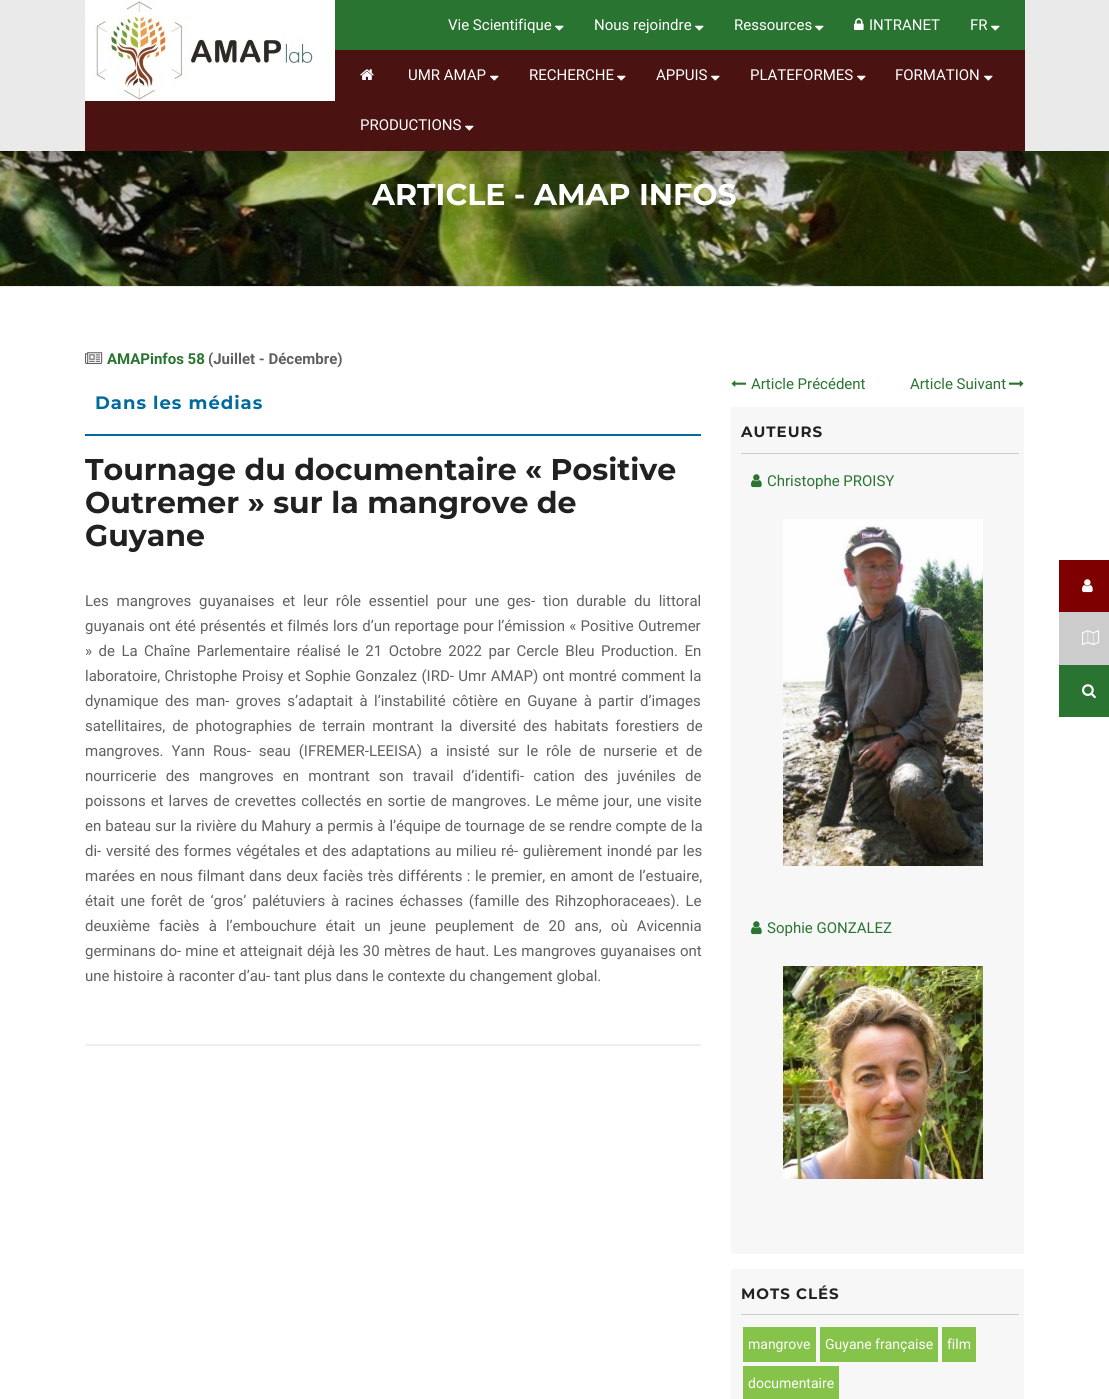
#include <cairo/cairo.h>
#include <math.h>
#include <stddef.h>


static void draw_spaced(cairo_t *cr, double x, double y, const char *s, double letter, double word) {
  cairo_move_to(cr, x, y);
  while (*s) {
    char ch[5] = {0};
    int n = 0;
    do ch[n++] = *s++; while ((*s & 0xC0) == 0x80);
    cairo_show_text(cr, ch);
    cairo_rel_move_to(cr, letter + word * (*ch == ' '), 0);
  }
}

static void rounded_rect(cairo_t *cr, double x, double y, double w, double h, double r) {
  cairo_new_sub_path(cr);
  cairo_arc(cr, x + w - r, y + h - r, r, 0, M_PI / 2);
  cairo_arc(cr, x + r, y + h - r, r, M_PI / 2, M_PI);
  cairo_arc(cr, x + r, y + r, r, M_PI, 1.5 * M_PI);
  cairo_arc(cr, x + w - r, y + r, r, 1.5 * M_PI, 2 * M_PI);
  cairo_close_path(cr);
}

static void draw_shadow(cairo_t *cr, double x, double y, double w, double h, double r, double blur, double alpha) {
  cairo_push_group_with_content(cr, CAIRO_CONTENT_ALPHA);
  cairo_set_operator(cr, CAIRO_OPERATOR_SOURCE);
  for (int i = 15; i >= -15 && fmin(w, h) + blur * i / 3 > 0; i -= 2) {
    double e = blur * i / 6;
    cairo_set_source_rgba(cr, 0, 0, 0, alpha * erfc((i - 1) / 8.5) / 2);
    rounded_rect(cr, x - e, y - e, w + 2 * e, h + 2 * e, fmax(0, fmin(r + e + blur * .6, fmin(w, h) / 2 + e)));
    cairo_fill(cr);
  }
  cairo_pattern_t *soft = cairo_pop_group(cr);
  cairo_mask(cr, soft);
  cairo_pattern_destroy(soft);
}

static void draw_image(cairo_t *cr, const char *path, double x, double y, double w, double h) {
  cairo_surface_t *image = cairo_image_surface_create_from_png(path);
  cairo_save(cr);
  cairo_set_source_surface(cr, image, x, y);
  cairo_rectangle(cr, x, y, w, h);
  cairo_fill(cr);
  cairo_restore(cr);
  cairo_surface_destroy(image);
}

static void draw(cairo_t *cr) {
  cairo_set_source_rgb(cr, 1, 1, 1);
  cairo_paint(cr);
  draw_image(cr, "images/6.png", 0, 151, 1109, 135);
  cairo_set_source_rgb(cr, 0, 0, 0);
  draw_shadow(cr, 0, 12, 1109, 151, 0, 6, 0.18);
  cairo_set_source_rgb(cr, 234 / 255.0, 234 / 255.0, 234 / 255.0);
  cairo_rectangle(cr, 0, 0, 1109, 151);
  cairo_fill(cr);
  cairo_set_source_rgb(cr, 74 / 255.0, 18 / 255.0, 17 / 255.0);
  cairo_rectangle(cr, 85, 50, 940, 101);
  cairo_fill(cr);
  draw_image(cr, "images/1.png", 85, 0, 250, 101);
  cairo_set_source_rgb(cr, 41 / 255.0, 116 / 255.0, 49 / 255.0);
  cairo_rectangle(cr, 335, 0, 690, 50);
  cairo_fill(cr);
  draw_image(cr, "images/2.png", 555, 25, 9, 6);
  draw_image(cr, "images/2.png", 695, 25, 9, 6);
  draw_image(cr, "images/2.png", 815, 25, 9, 6);
  draw_image(cr, "images/3.png", 854, 18, 10, 12);
  draw_image(cr, "images/2.png", 991, 25, 9, 6);
  draw_image(cr, "images/4.png", 360, 69, 14, 11);
  draw_image(cr, "images/5.png", 490, 75, 9, 6);
  draw_image(cr, "images/5.png", 617, 75, 9, 6);
  draw_image(cr, "images/5.png", 711, 75, 9, 6);
  draw_image(cr, "images/5.png", 857, 75, 9, 6);
  draw_image(cr, "images/5.png", 984, 75, 9, 6);
  draw_image(cr, "images/5.png", 465, 125, 9, 6);
  cairo_set_source_rgb(cr, 238 / 255.0, 238 / 255.0, 238 / 255.0);
  cairo_rectangle(cr, 0, 286, 1109, 1);
  cairo_fill(cr);
  cairo_set_source_rgb(cr, 239 / 255.0, 239 / 255.0, 239 / 255.0);
  cairo_rectangle(cr, 85, 1044, 616, 2);
  cairo_fill(cr);
  draw_image(cr, "images/7.png", 85, 352, 18, 12);
  cairo_set_source_rgb(cr, 0, 107 / 255.0, 156 / 255.0);
  cairo_rectangle(cr, 85, 434, 616, 2);
  cairo_fill(cr);
  draw_image(cr, "images/8.png", 731, 380, 15, 7);
  draw_image(cr, "images/9.png", 1009, 380, 15, 7);
  cairo_set_source_rgb(cr, 247 / 255.0, 247 / 255.0, 247 / 255.0);
  cairo_rectangle(cr, 731, 407, 293, 847);
  cairo_fill(cr);
  cairo_set_source_rgb(cr, 204 / 255.0, 204 / 255.0, 204 / 255.0);
  cairo_rectangle(cr, 741, 453, 278, 1);
  cairo_fill(cr);
  draw_image(cr, "images/10.png", 751, 474, 11, 14);
  draw_image(cr, "images/11.png", 783, 519, 200, 347);
  draw_image(cr, "images/10.png", 751, 921, 11, 14);
  draw_image(cr, "images/12.png", 783, 966, 200, 213);
  cairo_set_source_rgb(cr, 247 / 255.0, 247 / 255.0, 247 / 255.0);
  cairo_rectangle(cr, 731, 1269, 293, 130);
  cairo_fill(cr);
  cairo_set_source_rgb(cr, 204 / 255.0, 204 / 255.0, 204 / 255.0);
  cairo_rectangle(cr, 741, 1314, 278, 1);
  cairo_fill(cr);
  cairo_set_source_rgb(cr, 133 / 255.0, 195 / 255.0, 74 / 255.0);
  cairo_rectangle(cr, 743, 1327, 73, 35);
  cairo_fill(cr);
  cairo_rectangle(cr, 820, 1327, 118, 35);
  cairo_fill(cr);
  cairo_rectangle(cr, 942, 1327, 34, 35);
  cairo_fill(cr);
  cairo_rectangle(cr, 743, 1366, 96, 33);
  cairo_fill(cr);
  cairo_set_source_rgb(cr, 127 / 255.0, 0, 0);
  cairo_rectangle(cr, 1059, 560, 50, 52);
  cairo_fill(cr);
  draw_image(cr, "images/13.png", 1082, 579, 11, 14);
  cairo_set_source_rgb(cr, 204 / 255.0, 204 / 255.0, 204 / 255.0);
  cairo_rectangle(cr, 1059, 612, 50, 53);
  cairo_fill(cr);
  draw_image(cr, "images/14.png", 1082, 630, 18, 15);
  cairo_set_source_rgb(cr, 41 / 255.0, 116 / 255.0, 49 / 255.0);
  cairo_rectangle(cr, 1059, 665, 50, 52);
  cairo_fill(cr);
  draw_image(cr, "images/15.png", 1082, 684, 14, 15);
  cairo_select_font_face(cr, "Roboto", CAIRO_FONT_SLANT_NORMAL, CAIRO_FONT_WEIGHT_NORMAL);
  cairo_set_font_size(cr, 15);
  cairo_set_source_rgb(cr, 1, 1, 1);
  cairo_move_to(cr, 448, 30);
  cairo_show_text(cr, "Vie Scientifique");
  cairo_move_to(cr, 594, 30);
  cairo_show_text(cr, "Nous rejoindre");
  cairo_move_to(cr, 734, 30);
  cairo_show_text(cr, "Ressources");
  cairo_move_to(cr, 869, 30);
  cairo_show_text(cr, "INTRANET");
  cairo_move_to(cr, 970, 30);
  cairo_show_text(cr, "FR");
  cairo_move_to(cr, 408, 80);
  cairo_show_text(cr, "UMR AMAP");
  cairo_move_to(cr, 529, 80);
  cairo_show_text(cr, "RECHERCHE");
  cairo_move_to(cr, 656, 80);
  cairo_show_text(cr, "APPUIS");
  cairo_move_to(cr, 750, 80);
  cairo_show_text(cr, "PLATEFORMES");
  cairo_move_to(cr, 895, 80);
  cairo_show_text(cr, "FORMATION");
  cairo_move_to(cr, 360, 130);
  cairo_show_text(cr, "PRODUCTIONS");
  cairo_select_font_face(cr, "Montserrat Thin", CAIRO_FONT_SLANT_NORMAL, CAIRO_FONT_WEIGHT_NORMAL);
  cairo_set_font_size(cr, 30);
  cairo_move_to(cr, 372, 205);
  cairo_show_text(cr, "ARTICLE - AMAP INFOS");
  cairo_select_font_face(cr, "Roboto", CAIRO_FONT_SLANT_NORMAL, CAIRO_FONT_WEIGHT_BOLD);
  cairo_set_font_size(cr, 15);
  cairo_set_source_rgb(cr, 41 / 255.0, 116 / 255.0, 49 / 255.0);
  cairo_move_to(cr, 107, 364);
  cairo_show_text(cr, "AMAPinfos 58");
  cairo_set_source_rgb(cr, 96 / 255.0, 96 / 255.0, 96 / 255.0);
  cairo_move_to(cr, 208, 364);
  cairo_show_text(cr, "(Juillet - Décembre)");
  cairo_select_font_face(cr, "Montserrat Thin", CAIRO_FONT_SLANT_NORMAL, CAIRO_FONT_WEIGHT_NORMAL);
  cairo_set_font_size(cr, 18);
  cairo_set_source_rgb(cr, 0, 107 / 255.0, 156 / 255.0);
  draw_spaced(cr, 95, 409, "Dans les médias", 1, 0);
  cairo_set_font_size(cr, 30);
  cairo_set_source_rgb(cr, 33 / 255.0, 33 / 255.0, 33 / 255.0);
  cairo_move_to(cr, 85, 480);
  cairo_show_text(cr, "Tournage du documentaire « Positive");
  cairo_move_to(cr, 85, 513);
  cairo_show_text(cr, "Outremer » sur la mangrove de");
  cairo_move_to(cr, 85, 546);
  cairo_show_text(cr, "Guyane");
  cairo_select_font_face(cr, "Roboto", CAIRO_FONT_SLANT_NORMAL, CAIRO_FONT_WEIGHT_NORMAL);
  cairo_set_font_size(cr, 15);
  cairo_set_source_rgb(cr, 96 / 255.0, 96 / 255.0, 96 / 255.0);
  draw_spaced(cr, 85, 606, "Les mangroves guyanaises et leur rôle essentiel pour une ges- tion durable du littoral", 0, 4.1);
  draw_spaced(cr, 85, 631, "guyanais ont été présentés et filmés lors d’un reportage pour l’émission « Positive Outremer", 0, 0.5);
  draw_spaced(cr, 85, 656, "» de La Chaîne Parlementaire réalisé le 21 Octobre 2022 par Cercle Bleu Production. En", 0, 2.75);
  draw_spaced(cr, 85, 681, "laboratoire, Christophe Proisy et Sophie Gonzalez (IRD- Umr AMAP) ont montré comment la", 0, 0.75);
  draw_spaced(cr, 85, 706, "dynamique des man- groves s’adaptait à l’instabilité côtière en Guyane à partir d’images", 0, 2.75);
  draw_spaced(cr, 85, 731, "satellitaires, de photographies de terrain montrant la diversité des habitats forestiers de", 0, 3.25);
  draw_spaced(cr, 85, 756, "mangroves. Yann Rous- seau (IFREMER-LEEISA) a insisté sur le rôle de nurserie et de", 0, 4.1);
  draw_spaced(cr, 85, 781, "nourricerie des mangroves en montrant son travail d’identifi- cation des juvéniles de", 0, 5.5);
  draw_spaced(cr, 85, 806, "poissons et larves de crevettes collectés en sortie de mangroves. Le même jour, une visite", 0, 1.25);
  draw_spaced(cr, 85, 831, "en bateau sur la rivière du Mahury a permis à l’équipe de tournage de se rendre compte de la", 0, 0.25);
  draw_spaced(cr, 85, 856, "di- versité des formes végétales et des adaptations au milieu ré- gulièrement inondé par les", 0, 0.9);
  draw_spaced(cr, 85, 881, "marées en nous filmant dans deux faciès très différents : le premier, en amont de l’estuaire,", 0, 0.75);
  draw_spaced(cr, 85, 906, "était une forêt de ‘gros’ palétuviers à racines échasses (famille des Rihzophoraceaes). Le", 0, 2.1);
  draw_spaced(cr, 85, 931, "deuxième faciès à l’embouchure était un jeune peuplement de 20 ans, où Avicennia", 0, 5.4);
  draw_spaced(cr, 85, 956, "germinans do- mine et atteignait déjà les 30 mètres de haut. Les mangroves guyanaises ont", 0, 0.5);
  cairo_move_to(cr, 85, 981);
  cairo_show_text(cr, "une histoire à raconter d’au- tant plus dans le contexte du changement global.");
  cairo_set_source_rgb(cr, 41 / 255.0, 116 / 255.0, 49 / 255.0);
  cairo_move_to(cr, 751, 389);
  cairo_show_text(cr, "Article Précédent");
  cairo_move_to(cr, 910, 389);
  cairo_show_text(cr, "Article Suivant");
  cairo_select_font_face(cr, "Montserrat Thin", CAIRO_FONT_SLANT_NORMAL, CAIRO_FONT_WEIGHT_NORMAL);
  cairo_set_source_rgb(cr, 33 / 255.0, 33 / 255.0, 33 / 255.0);
  draw_spaced(cr, 741, 437, "AUTEURS", 1, 0);
  cairo_select_font_face(cr, "Roboto", CAIRO_FONT_SLANT_NORMAL, CAIRO_FONT_WEIGHT_NORMAL);
  cairo_set_source_rgb(cr, 41 / 255.0, 116 / 255.0, 49 / 255.0);
  cairo_move_to(cr, 767, 486);
  cairo_show_text(cr, "Christophe PROISY");
  cairo_move_to(cr, 767, 933);
  cairo_show_text(cr, "Sophie GONZALEZ");
  cairo_select_font_face(cr, "Montserrat Thin", CAIRO_FONT_SLANT_NORMAL, CAIRO_FONT_WEIGHT_NORMAL);
  cairo_set_source_rgb(cr, 33 / 255.0, 33 / 255.0, 33 / 255.0);
  draw_spaced(cr, 741, 1299, "MOTS CLÉS", 1, 0);
  cairo_select_font_face(cr, "Roboto", CAIRO_FONT_SLANT_NORMAL, CAIRO_FONT_WEIGHT_NORMAL);
  cairo_set_font_size(cr, 14);
  cairo_set_source_rgb(cr, 1, 1, 1);
  cairo_move_to(cr, 748, 1349);
  cairo_show_text(cr, "mangrove");
  cairo_move_to(cr, 825, 1349);
  cairo_show_text(cr, "Guyane française");
  cairo_move_to(cr, 947, 1349);
  cairo_show_text(cr, "film");
  cairo_move_to(cr, 748, 1388);
  cairo_show_text(cr, "documentaire");
}

int main(void) {
  cairo_surface_t *surface = cairo_image_surface_create(CAIRO_FORMAT_RGB24, 1109, 1399);
  cairo_t *cr = cairo_create(surface);
  cairo_font_options_t *options = cairo_font_options_create();
  cairo_font_options_set_hint_metrics(options, CAIRO_HINT_METRICS_OFF);
  cairo_font_options_set_hint_style(options, CAIRO_HINT_STYLE_NONE);
  cairo_set_font_options(cr, options);
  cairo_set_miter_limit(cr, 4);
  draw(cr);
  cairo_surface_write_to_png(surface, "out.png");
  cairo_font_options_destroy(options);
  cairo_destroy(cr);
  cairo_surface_destroy(surface);
  return 0;
}
